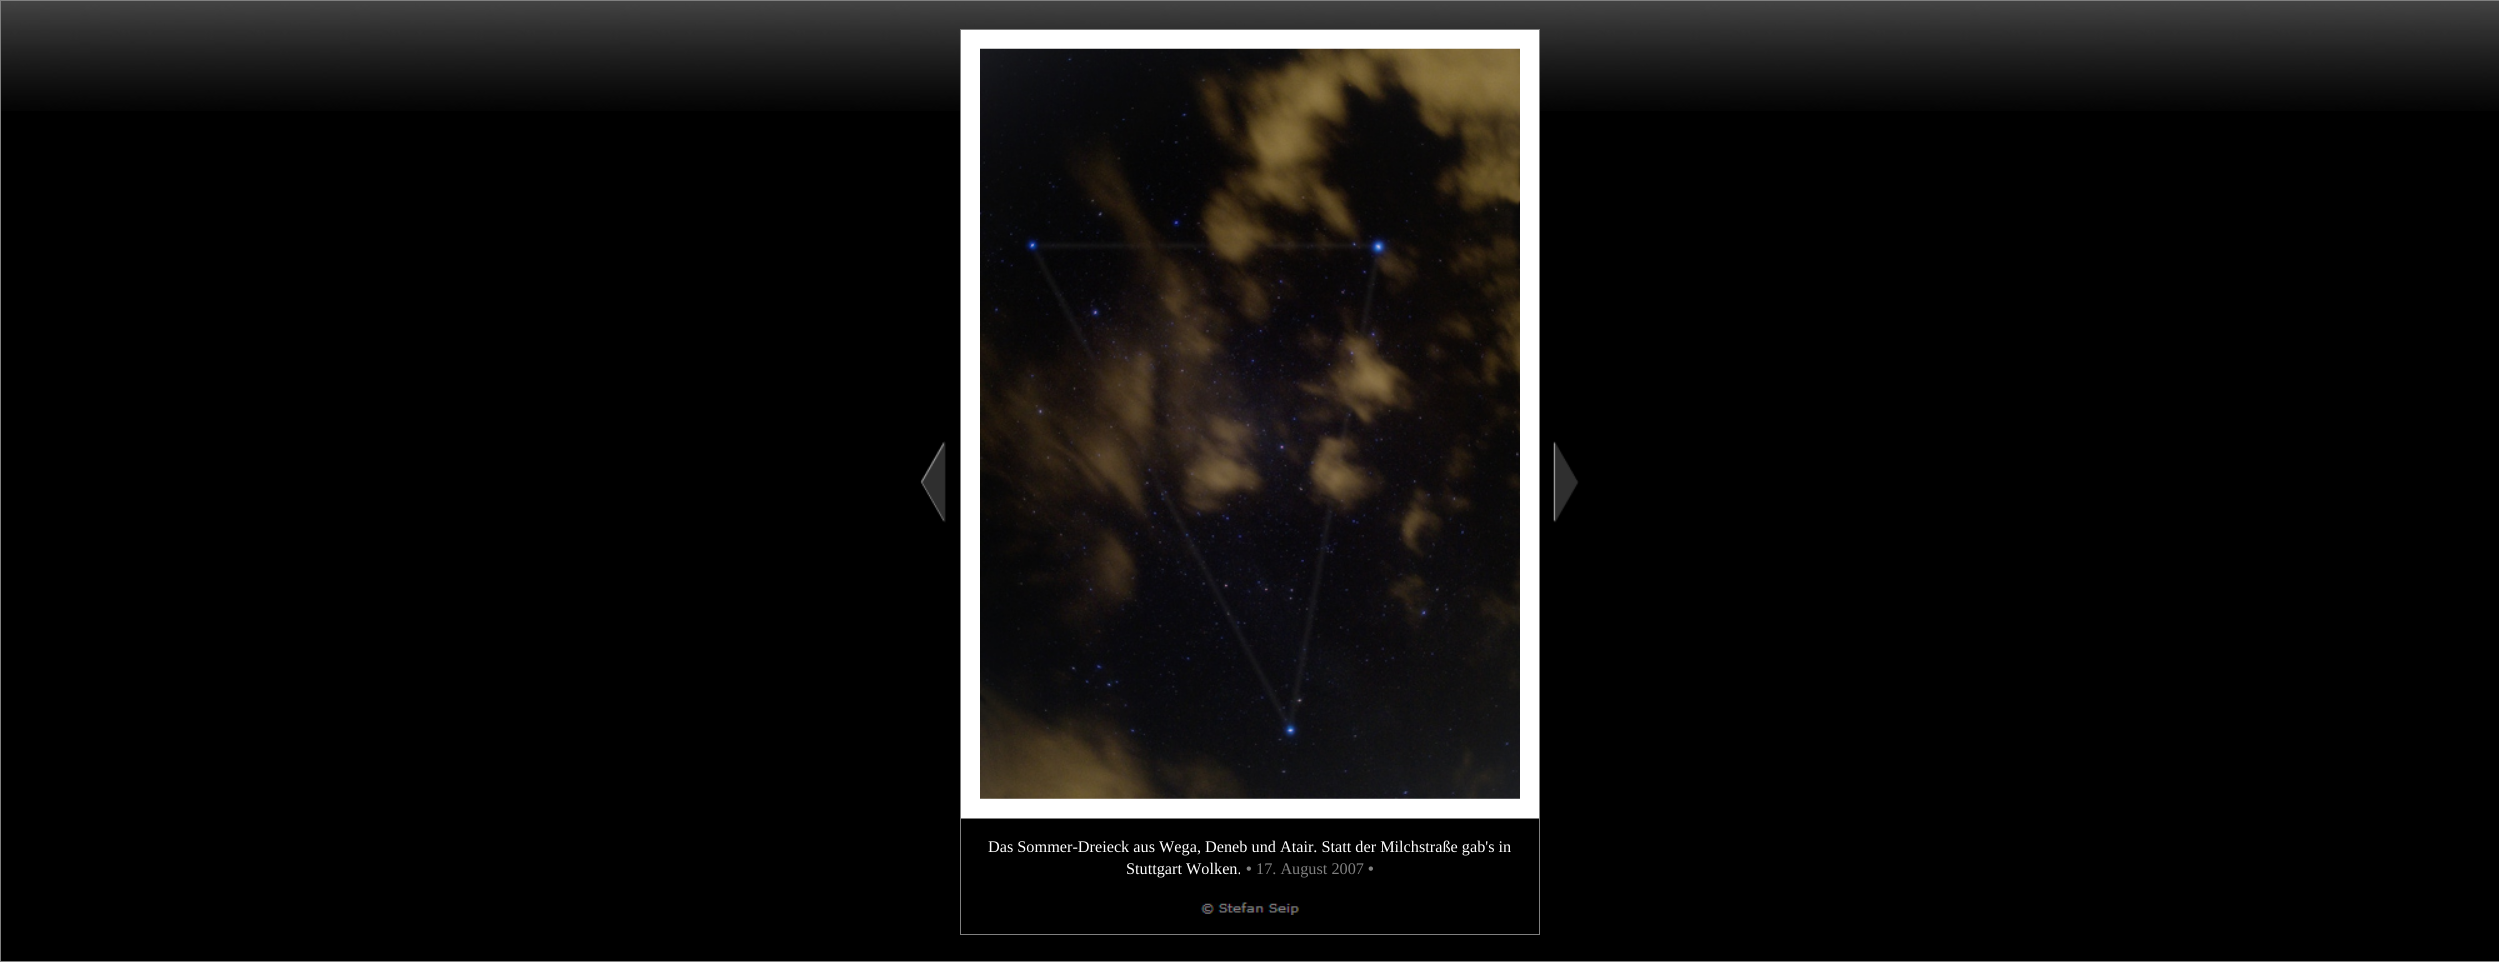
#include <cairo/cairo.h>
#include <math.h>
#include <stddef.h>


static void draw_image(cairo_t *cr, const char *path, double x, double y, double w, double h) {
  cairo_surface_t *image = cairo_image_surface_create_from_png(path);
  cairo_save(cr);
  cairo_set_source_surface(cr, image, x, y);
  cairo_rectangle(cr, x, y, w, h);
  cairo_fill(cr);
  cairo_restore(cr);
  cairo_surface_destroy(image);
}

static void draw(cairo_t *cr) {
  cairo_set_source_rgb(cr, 0, 0, 0);
  cairo_paint(cr);
  draw_image(cr, "images/1.png", 1, 1, 2498, 110);
  cairo_set_source_rgb(cr, 128 / 255.0, 128 / 255.0, 128 / 255.0);
  cairo_rectangle(cr, 0, 0, 2499, 1);
  cairo_fill(cr);
  cairo_rectangle(cr, 0, 961, 2499, 1);
  cairo_fill(cr);
  cairo_rectangle(cr, 0, 0, 1, 962);
  cairo_fill(cr);
  draw_image(cr, "images/2.png", 920, 441, 26, 82);
  draw_image(cr, "images/3.png", 1553, 441, 26, 82);
  cairo_rectangle(cr, 960, 29, 580, 1);
  cairo_fill(cr);
  cairo_rectangle(cr, 1539, 29, 1, 906);
  cairo_fill(cr);
  cairo_rectangle(cr, 960, 934, 580, 1);
  cairo_fill(cr);
  cairo_rectangle(cr, 960, 29, 1, 906);
  cairo_fill(cr);
  cairo_set_source_rgb(cr, 1, 1, 1);
  cairo_rectangle(cr, 961, 30, 578, 788);
  cairo_fill(cr);
  draw_image(cr, "images/4.png", 980, 48, 540, 751);
  cairo_set_source_rgb(cr, 128 / 255.0, 128 / 255.0, 128 / 255.0);
  cairo_rectangle(cr, 960, 818, 580, 1);
  cairo_fill(cr);
  draw_image(cr, "images/5.png", 1200, 902, 100, 13);
  cairo_select_font_face(cr, "Liberation Serif", CAIRO_FONT_SLANT_NORMAL, CAIRO_FONT_WEIGHT_NORMAL);
  cairo_set_font_size(cr, 16.25);
  cairo_set_source_rgb(cr, 1, 1, 1);
  cairo_move_to(cr, 988, 852);
  cairo_show_text(cr, "Das Sommer-Dreieck aus Wega, Deneb und Atair. Statt der Milchstraße gab's in");
  cairo_move_to(cr, 1126, 874);
  cairo_show_text(cr, "Stuttgart Wolken.");
  cairo_select_font_face(cr, "Liberation Sans", CAIRO_FONT_SLANT_NORMAL, CAIRO_FONT_WEIGHT_NORMAL);
  cairo_set_source_rgb(cr, 128 / 255.0, 128 / 255.0, 128 / 255.0);
  cairo_move_to(cr, 1246, 874);
  cairo_show_text(cr, "•");
  cairo_select_font_face(cr, "Liberation Serif", CAIRO_FONT_SLANT_NORMAL, CAIRO_FONT_WEIGHT_NORMAL);
  cairo_move_to(cr, 1256, 874);
  cairo_show_text(cr, "17. August 2007");
  cairo_select_font_face(cr, "Liberation Sans", CAIRO_FONT_SLANT_NORMAL, CAIRO_FONT_WEIGHT_NORMAL);
  cairo_move_to(cr, 1368, 874);
  cairo_show_text(cr, "•");
}

int main(void) {
  cairo_surface_t *surface = cairo_image_surface_create(CAIRO_FORMAT_RGB24, 2499, 962);
  cairo_t *cr = cairo_create(surface);
  cairo_font_options_t *options = cairo_font_options_create();
  cairo_font_options_set_hint_metrics(options, CAIRO_HINT_METRICS_OFF);
  cairo_font_options_set_hint_style(options, CAIRO_HINT_STYLE_NONE);
  cairo_set_font_options(cr, options);
  cairo_set_miter_limit(cr, 4);
  draw(cr);
  cairo_surface_write_to_png(surface, "out.png");
  cairo_font_options_destroy(options);
  cairo_destroy(cr);
  cairo_surface_destroy(surface);
  return 0;
}
